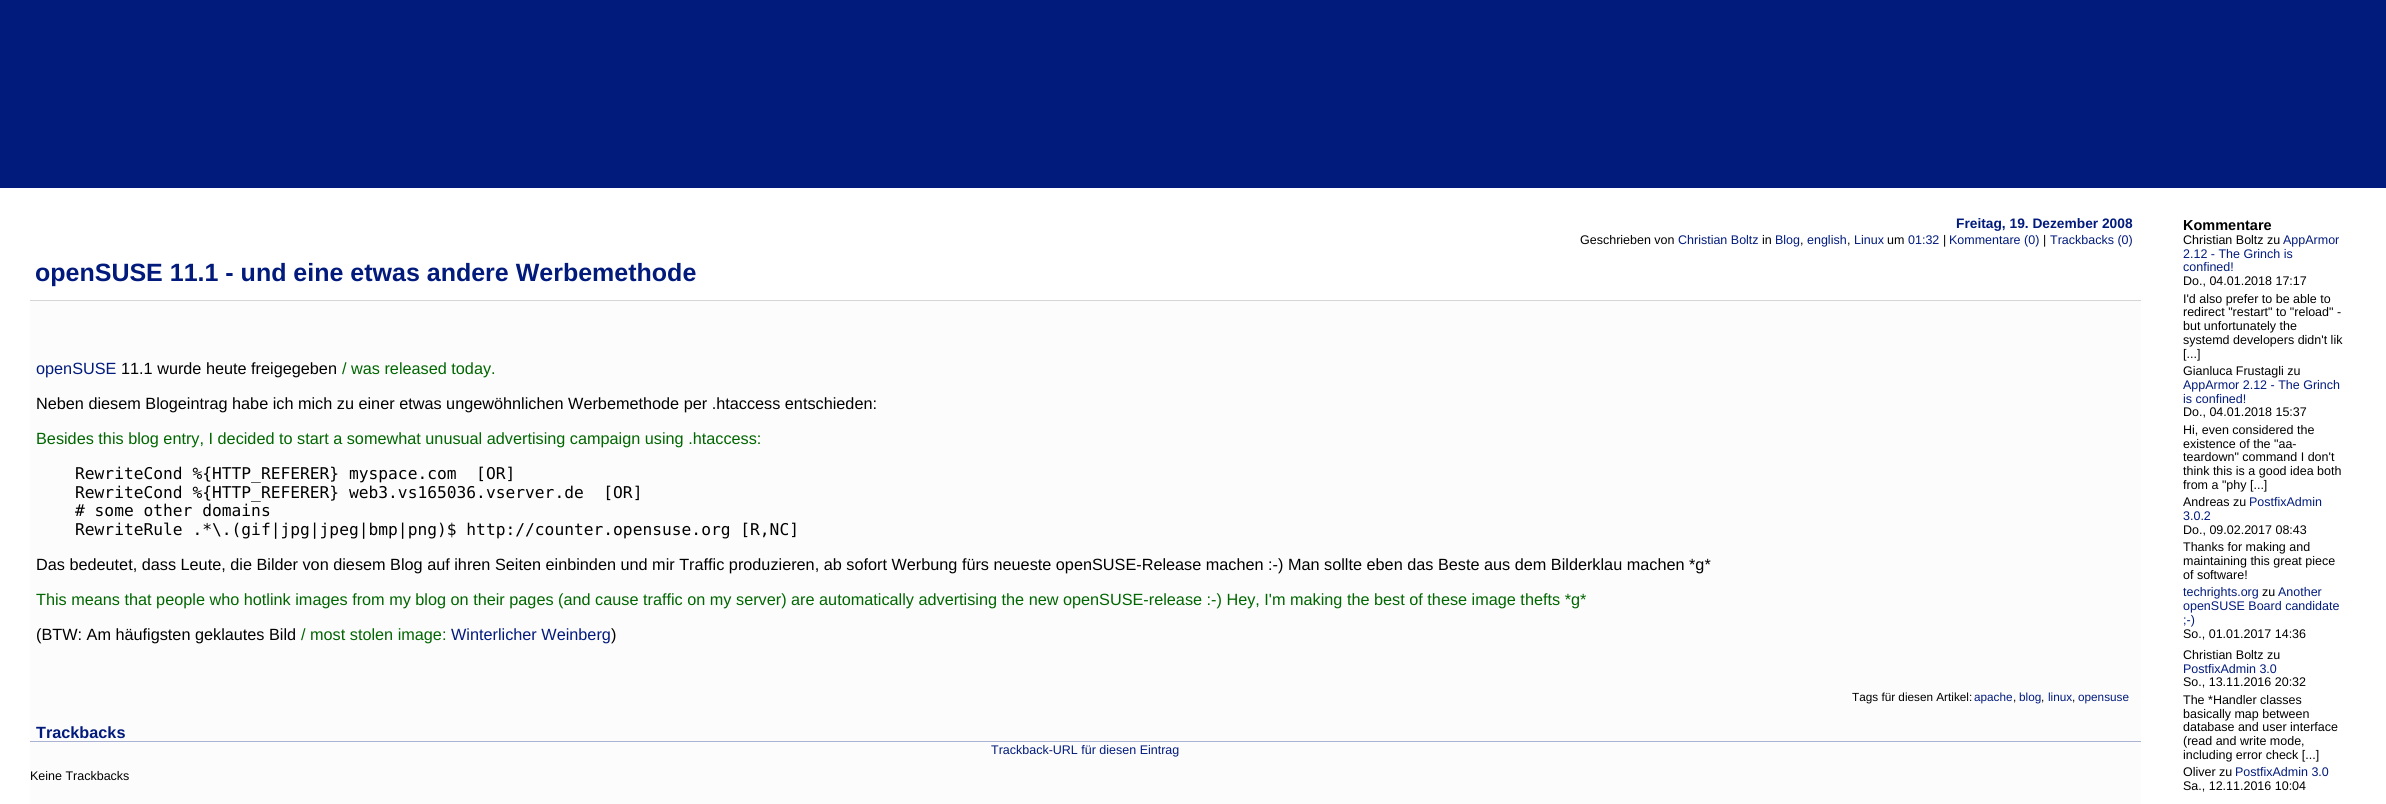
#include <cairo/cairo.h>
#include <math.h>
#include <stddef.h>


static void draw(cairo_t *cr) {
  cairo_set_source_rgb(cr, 1, 1, 1);
  cairo_paint(cr);
  cairo_set_source_rgb(cr, 1 / 255.0, 27 / 255.0, 124 / 255.0);
  cairo_rectangle(cr, 0, 0, 2386, 188);
  cairo_fill(cr);
  cairo_set_source_rgb(cr, 252 / 255.0, 252 / 255.0, 252 / 255.0);
  cairo_rectangle(cr, 30, 301, 2111, 503);
  cairo_fill(cr);
  cairo_set_source_rgb(cr, 214 / 255.0, 214 / 255.0, 214 / 255.0);
  cairo_rectangle(cr, 30, 300, 2111, 1);
  cairo_fill(cr);
  cairo_set_source_rgb(cr, 170 / 255.0, 179 / 255.0, 211 / 255.0);
  cairo_rectangle(cr, 30, 741, 2111, 1);
  cairo_fill(cr);
  cairo_select_font_face(cr, "Liberation Sans", CAIRO_FONT_SLANT_NORMAL, CAIRO_FONT_WEIGHT_BOLD);
  cairo_set_font_size(cr, 13.75);
  cairo_set_source_rgb(cr, 1 / 255.0, 26 / 255.0, 124 / 255.0);
  cairo_move_to(cr, 1956, 228);
  cairo_show_text(cr, "Freitag, 19. Dezember 2008");
  cairo_select_font_face(cr, "Liberation Sans", CAIRO_FONT_SLANT_NORMAL, CAIRO_FONT_WEIGHT_NORMAL);
  cairo_set_font_size(cr, 12.5);
  cairo_set_source_rgb(cr, 0, 0, 0);
  cairo_move_to(cr, 1580, 244);
  cairo_show_text(cr, "Geschrieben von");
  cairo_set_source_rgb(cr, 1 / 255.0, 26 / 255.0, 124 / 255.0);
  cairo_move_to(cr, 1678, 244);
  cairo_show_text(cr, "Christian Boltz");
  cairo_set_source_rgb(cr, 0, 0, 0);
  cairo_move_to(cr, 1762, 244);
  cairo_show_text(cr, "in");
  cairo_set_source_rgb(cr, 1 / 255.0, 26 / 255.0, 124 / 255.0);
  cairo_move_to(cr, 1775, 244);
  cairo_show_text(cr, "Blog");
  cairo_set_source_rgb(cr, 0, 0, 0);
  cairo_move_to(cr, 1800, 244);
  cairo_show_text(cr, ",");
  cairo_set_source_rgb(cr, 1 / 255.0, 26 / 255.0, 124 / 255.0);
  cairo_move_to(cr, 1807, 244);
  cairo_show_text(cr, "english");
  cairo_set_source_rgb(cr, 0, 0, 0);
  cairo_move_to(cr, 1847, 244);
  cairo_show_text(cr, ",");
  cairo_set_source_rgb(cr, 1 / 255.0, 26 / 255.0, 124 / 255.0);
  cairo_move_to(cr, 1854, 244);
  cairo_show_text(cr, "Linux");
  cairo_set_source_rgb(cr, 0, 0, 0);
  cairo_move_to(cr, 1887, 244);
  cairo_show_text(cr, "um");
  cairo_set_source_rgb(cr, 1 / 255.0, 26 / 255.0, 124 / 255.0);
  cairo_move_to(cr, 1908, 244);
  cairo_show_text(cr, "01:32");
  cairo_set_source_rgb(cr, 0, 0, 0);
  cairo_move_to(cr, 1943, 244);
  cairo_show_text(cr, "|");
  cairo_set_source_rgb(cr, 1 / 255.0, 26 / 255.0, 124 / 255.0);
  cairo_move_to(cr, 1949, 244);
  cairo_show_text(cr, "Kommentare (0)");
  cairo_set_source_rgb(cr, 0, 0, 0);
  cairo_move_to(cr, 2043, 244);
  cairo_show_text(cr, "|");
  cairo_set_source_rgb(cr, 1 / 255.0, 26 / 255.0, 124 / 255.0);
  cairo_move_to(cr, 2050, 244);
  cairo_show_text(cr, "Trackbacks (0)");
  cairo_select_font_face(cr, "Liberation Sans", CAIRO_FONT_SLANT_NORMAL, CAIRO_FONT_WEIGHT_BOLD);
  cairo_set_font_size(cr, 25);
  cairo_move_to(cr, 35, 281);
  cairo_show_text(cr, "openSUSE 11.1 - und eine etwas andere Werbemethode");
  cairo_select_font_face(cr, "Liberation Sans", CAIRO_FONT_SLANT_NORMAL, CAIRO_FONT_WEIGHT_NORMAL);
  cairo_set_font_size(cr, 16.25);
  cairo_move_to(cr, 36, 374);
  cairo_show_text(cr, "openSUSE");
  cairo_set_source_rgb(cr, 0, 0, 0);
  cairo_move_to(cr, 121, 374);
  cairo_show_text(cr, "11.1 wurde heute freigegeben");
  cairo_set_source_rgb(cr, 0, 102 / 255.0, 0);
  cairo_move_to(cr, 342, 374);
  cairo_show_text(cr, "/ was released today.");
  cairo_set_source_rgb(cr, 0, 0, 0);
  cairo_move_to(cr, 36, 409);
  cairo_show_text(cr, "Neben diesem Blogeintrag habe ich mich zu einer etwas ungewöhnlichen Werbemethode per .htaccess entschieden:");
  cairo_set_source_rgb(cr, 0, 102 / 255.0, 0);
  cairo_move_to(cr, 36, 444);
  cairo_show_text(cr, "Besides this blog entry, I decided to start a somewhat unusual advertising campaign using .htaccess:");
  cairo_select_font_face(cr, "DejaVu Sans Mono", CAIRO_FONT_SLANT_NORMAL, CAIRO_FONT_WEIGHT_NORMAL);
  cairo_set_source_rgb(cr, 0, 0, 0);
  cairo_move_to(cr, 75, 479);
  cairo_show_text(cr, "RewriteCond %{HTTP_REFERER} myspace.com  [OR]");
  cairo_move_to(cr, 75, 498);
  cairo_show_text(cr, "RewriteCond %{HTTP_REFERER} web3.vs165036.vserver.de  [OR]");
  cairo_move_to(cr, 75, 516);
  cairo_show_text(cr, "# some other domains");
  cairo_move_to(cr, 75, 535);
  cairo_show_text(cr, "RewriteRule .*\\.(gif|jpg|jpeg|bmp|png)$ http://counter.opensuse.org [R,NC]");
  cairo_select_font_face(cr, "Liberation Sans", CAIRO_FONT_SLANT_NORMAL, CAIRO_FONT_WEIGHT_NORMAL);
  cairo_move_to(cr, 36, 570);
  cairo_show_text(cr, "Das bedeutet, dass Leute, die Bilder von diesem Blog auf ihren Seiten einbinden und mir Traffic produzieren, ab sofort Werbung fürs neueste openSUSE-Release machen :-) Man sollte eben das Beste aus dem Bilderklau machen *g*");
  cairo_set_source_rgb(cr, 0, 102 / 255.0, 0);
  cairo_move_to(cr, 36, 605);
  cairo_show_text(cr, "This means that people who hotlink images from my blog on their pages (and cause traffic on my server) are automatically advertising the new openSUSE-release :-) Hey, I'm making the best of these image thefts *g*");
  cairo_set_source_rgb(cr, 0, 0, 0);
  cairo_move_to(cr, 36, 640);
  cairo_show_text(cr, "(BTW: Am häufigsten geklautes Bild");
  cairo_set_source_rgb(cr, 0, 102 / 255.0, 0);
  cairo_move_to(cr, 301, 640);
  cairo_show_text(cr, "/ most stolen image:");
  cairo_set_source_rgb(cr, 1 / 255.0, 26 / 255.0, 124 / 255.0);
  cairo_move_to(cr, 451, 640);
  cairo_show_text(cr, "Winterlicher Weinberg");
  cairo_set_source_rgb(cr, 0, 0, 0);
  cairo_move_to(cr, 611, 640);
  cairo_show_text(cr, ")");
  cairo_set_font_size(cr, 11.75);
  cairo_move_to(cr, 1852, 701);
  cairo_show_text(cr, "Tags für diesen Artikel:");
  cairo_set_source_rgb(cr, 1 / 255.0, 26 / 255.0, 124 / 255.0);
  cairo_move_to(cr, 1974, 701);
  cairo_show_text(cr, "apache");
  cairo_set_source_rgb(cr, 0, 0, 0);
  cairo_move_to(cr, 2013, 701);
  cairo_show_text(cr, ",");
  cairo_set_source_rgb(cr, 1 / 255.0, 26 / 255.0, 124 / 255.0);
  cairo_move_to(cr, 2019, 701);
  cairo_show_text(cr, "blog");
  cairo_set_source_rgb(cr, 0, 0, 0);
  cairo_move_to(cr, 2041, 701);
  cairo_show_text(cr, ",");
  cairo_set_source_rgb(cr, 1 / 255.0, 26 / 255.0, 124 / 255.0);
  cairo_move_to(cr, 2048, 701);
  cairo_show_text(cr, "linux");
  cairo_set_source_rgb(cr, 0, 0, 0);
  cairo_move_to(cr, 2072, 701);
  cairo_show_text(cr, ",");
  cairo_set_source_rgb(cr, 1 / 255.0, 26 / 255.0, 124 / 255.0);
  cairo_move_to(cr, 2078, 701);
  cairo_show_text(cr, "opensuse");
  cairo_select_font_face(cr, "Liberation Sans", CAIRO_FONT_SLANT_NORMAL, CAIRO_FONT_WEIGHT_BOLD);
  cairo_set_font_size(cr, 16.25);
  cairo_move_to(cr, 36, 738);
  cairo_show_text(cr, "Trackbacks");
  cairo_select_font_face(cr, "Liberation Sans", CAIRO_FONT_SLANT_NORMAL, CAIRO_FONT_WEIGHT_NORMAL);
  cairo_set_font_size(cr, 12.5);
  cairo_move_to(cr, 991, 754);
  cairo_show_text(cr, "Trackback-URL für diesen Eintrag");
  cairo_set_source_rgb(cr, 0, 0, 0);
  cairo_move_to(cr, 30, 780);
  cairo_show_text(cr, "Keine Trackbacks");
  cairo_select_font_face(cr, "Liberation Sans", CAIRO_FONT_SLANT_NORMAL, CAIRO_FONT_WEIGHT_BOLD);
  cairo_set_font_size(cr, 14.5);
  cairo_move_to(cr, 2183, 230);
  cairo_show_text(cr, "Kommentare");
  cairo_select_font_face(cr, "Liberation Sans", CAIRO_FONT_SLANT_NORMAL, CAIRO_FONT_WEIGHT_NORMAL);
  cairo_set_font_size(cr, 12.5);
  cairo_move_to(cr, 2183, 244);
  cairo_show_text(cr, "Christian Boltz zu");
  cairo_set_source_rgb(cr, 1 / 255.0, 26 / 255.0, 124 / 255.0);
  cairo_move_to(cr, 2283, 244);
  cairo_show_text(cr, "AppArmor");
  cairo_move_to(cr, 2183, 258);
  cairo_show_text(cr, "2.12 - The Grinch is");
  cairo_move_to(cr, 2183, 271);
  cairo_show_text(cr, "confined!");
  cairo_set_source_rgb(cr, 0, 0, 0);
  cairo_move_to(cr, 2183, 285);
  cairo_show_text(cr, "Do., 04.01.2018 17:17");
  cairo_move_to(cr, 2183, 303);
  cairo_show_text(cr, "I'd also prefer to be able to");
  cairo_move_to(cr, 2183, 316);
  cairo_show_text(cr, "redirect \"restart\" to \"reload\" -");
  cairo_move_to(cr, 2183, 330);
  cairo_show_text(cr, "but unfortunately the");
  cairo_move_to(cr, 2183, 344);
  cairo_show_text(cr, "systemd developers didn't lik");
  cairo_move_to(cr, 2183, 358);
  cairo_show_text(cr, "[...]");
  cairo_move_to(cr, 2183, 375);
  cairo_show_text(cr, "Gianluca Frustagli zu");
  cairo_set_source_rgb(cr, 1 / 255.0, 26 / 255.0, 124 / 255.0);
  cairo_move_to(cr, 2183, 389);
  cairo_show_text(cr, "AppArmor 2.12 - The Grinch");
  cairo_move_to(cr, 2183, 403);
  cairo_show_text(cr, "is confined!");
  cairo_set_source_rgb(cr, 0, 0, 0);
  cairo_move_to(cr, 2183, 416);
  cairo_show_text(cr, "Do., 04.01.2018 15:37");
  cairo_move_to(cr, 2183, 434);
  cairo_show_text(cr, "Hi, even considered the");
  cairo_move_to(cr, 2183, 448);
  cairo_show_text(cr, "existence of the \"aa-");
  cairo_move_to(cr, 2183, 461);
  cairo_show_text(cr, "teardown\" command I don't");
  cairo_move_to(cr, 2183, 475);
  cairo_show_text(cr, "think this is a good idea both");
  cairo_move_to(cr, 2183, 489);
  cairo_show_text(cr, "from a \"phy [...]");
  cairo_move_to(cr, 2183, 506);
  cairo_show_text(cr, "Andreas zu");
  cairo_set_source_rgb(cr, 1 / 255.0, 26 / 255.0, 124 / 255.0);
  cairo_move_to(cr, 2249, 506);
  cairo_show_text(cr, "PostfixAdmin");
  cairo_move_to(cr, 2183, 520);
  cairo_show_text(cr, "3.0.2");
  cairo_set_source_rgb(cr, 0, 0, 0);
  cairo_move_to(cr, 2183, 534);
  cairo_show_text(cr, "Do., 09.02.2017 08:43");
  cairo_move_to(cr, 2183, 551);
  cairo_show_text(cr, "Thanks for making and");
  cairo_move_to(cr, 2183, 565);
  cairo_show_text(cr, "maintaining this great piece");
  cairo_move_to(cr, 2183, 579);
  cairo_show_text(cr, "of software!");
  cairo_set_source_rgb(cr, 1 / 255.0, 26 / 255.0, 124 / 255.0);
  cairo_move_to(cr, 2183, 596);
  cairo_show_text(cr, "techrights.org");
  cairo_set_source_rgb(cr, 0, 0, 0);
  cairo_move_to(cr, 2262, 596);
  cairo_show_text(cr, "zu");
  cairo_set_source_rgb(cr, 1 / 255.0, 26 / 255.0, 124 / 255.0);
  cairo_move_to(cr, 2278, 596);
  cairo_show_text(cr, "Another");
  cairo_move_to(cr, 2183, 610);
  cairo_show_text(cr, "openSUSE Board candidate");
  cairo_move_to(cr, 2183, 624);
  cairo_show_text(cr, ";-)");
  cairo_set_source_rgb(cr, 0, 0, 0);
  cairo_move_to(cr, 2183, 638);
  cairo_show_text(cr, "So., 01.01.2017 14:36");
  cairo_move_to(cr, 2183, 659);
  cairo_show_text(cr, "Christian Boltz zu");
  cairo_set_source_rgb(cr, 1 / 255.0, 26 / 255.0, 124 / 255.0);
  cairo_move_to(cr, 2183, 673);
  cairo_show_text(cr, "PostfixAdmin 3.0");
  cairo_set_source_rgb(cr, 0, 0, 0);
  cairo_move_to(cr, 2183, 686);
  cairo_show_text(cr, "So., 13.11.2016 20:32");
  cairo_move_to(cr, 2183, 704);
  cairo_show_text(cr, "The *Handler classes");
  cairo_move_to(cr, 2183, 718);
  cairo_show_text(cr, "basically map between");
  cairo_move_to(cr, 2183, 731);
  cairo_show_text(cr, "database and user interface");
  cairo_move_to(cr, 2183, 745);
  cairo_show_text(cr, "(read and write mode,");
  cairo_move_to(cr, 2183, 759);
  cairo_show_text(cr, "including error check [...]");
  cairo_move_to(cr, 2183, 776);
  cairo_show_text(cr, "Oliver zu");
  cairo_set_source_rgb(cr, 1 / 255.0, 26 / 255.0, 124 / 255.0);
  cairo_move_to(cr, 2235, 776);
  cairo_show_text(cr, "PostfixAdmin 3.0");
  cairo_set_source_rgb(cr, 0, 0, 0);
  cairo_move_to(cr, 2183, 790);
  cairo_show_text(cr, "Sa., 12.11.2016 10:04");
}

int main(void) {
  cairo_surface_t *surface = cairo_image_surface_create(CAIRO_FORMAT_RGB24, 2386, 804);
  cairo_t *cr = cairo_create(surface);
  cairo_font_options_t *options = cairo_font_options_create();
  cairo_font_options_set_hint_metrics(options, CAIRO_HINT_METRICS_OFF);
  cairo_font_options_set_hint_style(options, CAIRO_HINT_STYLE_NONE);
  cairo_set_font_options(cr, options);
  cairo_set_miter_limit(cr, 4);
  draw(cr);
  cairo_surface_write_to_png(surface, "out.png");
  cairo_font_options_destroy(options);
  cairo_destroy(cr);
  cairo_surface_destroy(surface);
  return 0;
}
